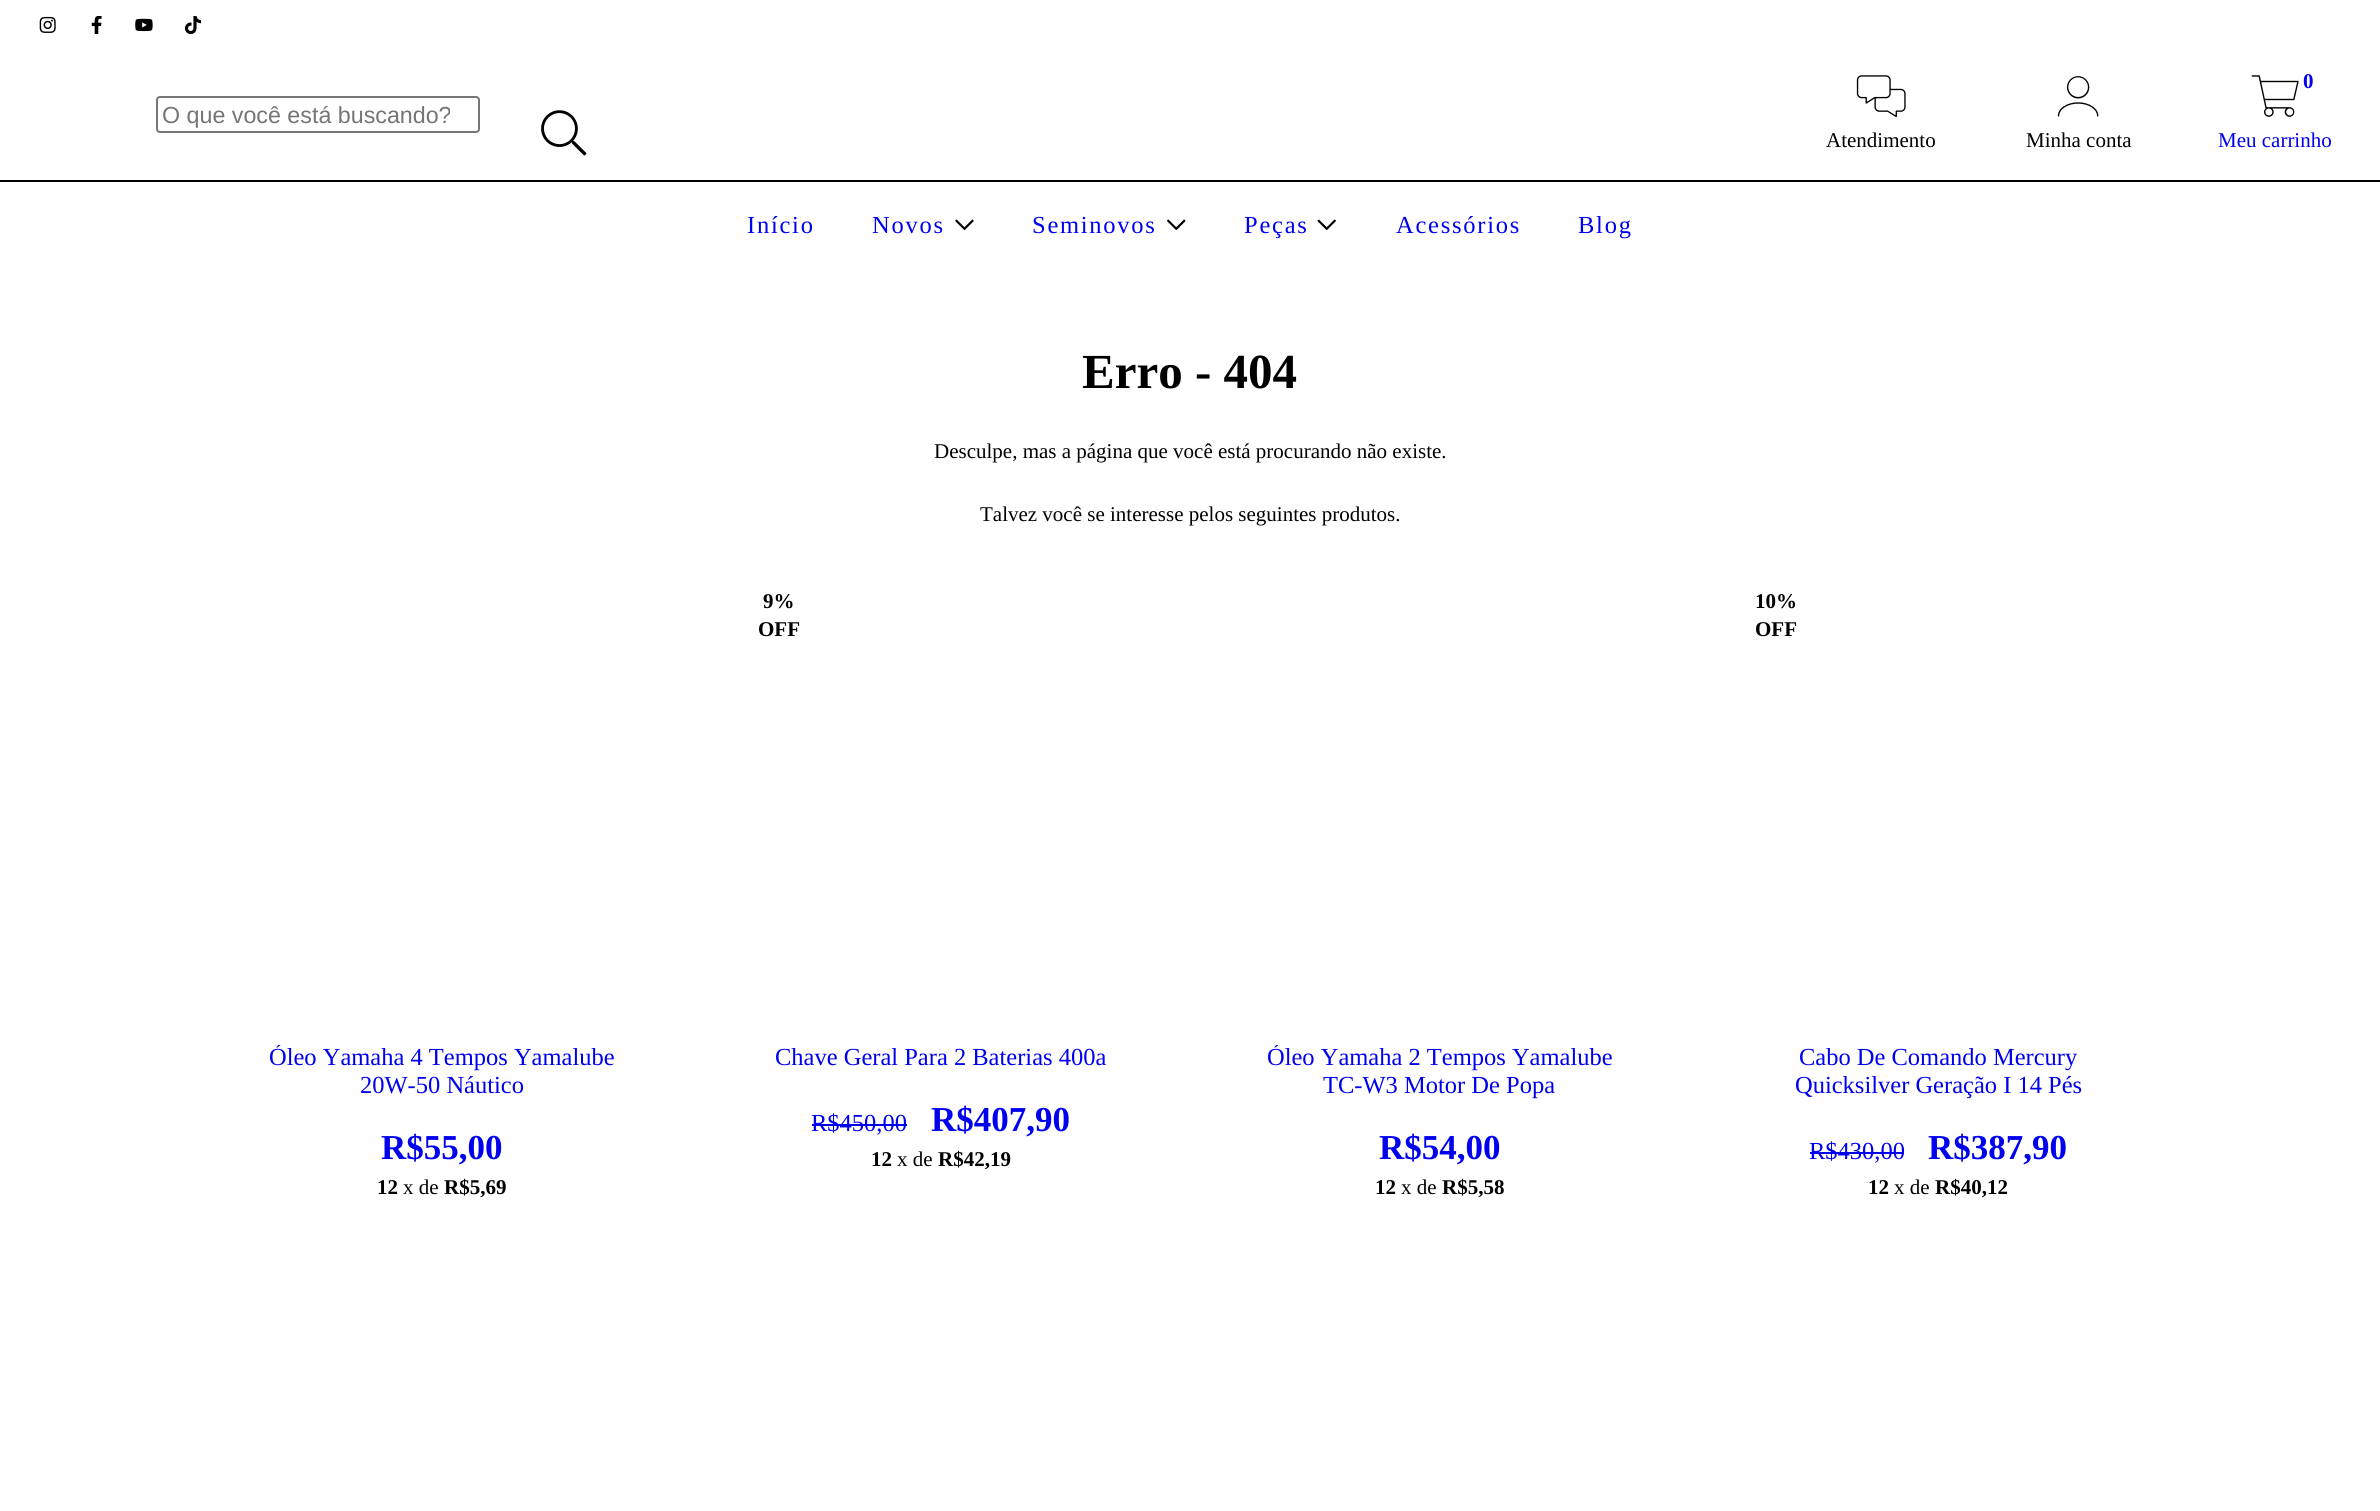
#include <cairo/cairo.h>
#include <math.h>
#include <stddef.h>


static void draw_spaced(cairo_t *cr, double x, double y, const char *s, double letter, double word) {
  cairo_move_to(cr, x, y);
  while (*s) {
    char ch[5] = {0};
    int n = 0;
    do ch[n++] = *s++; while ((*s & 0xC0) == 0x80);
    cairo_show_text(cr, ch);
    cairo_rel_move_to(cr, letter + word * (*ch == ' '), 0);
  }
}

static void rounded_rect(cairo_t *cr, double x, double y, double w, double h, double r) {
  cairo_new_sub_path(cr);
  cairo_arc(cr, x + w - r, y + h - r, r, 0, M_PI / 2);
  cairo_arc(cr, x + r, y + h - r, r, M_PI / 2, M_PI);
  cairo_arc(cr, x + r, y + r, r, M_PI, 1.5 * M_PI);
  cairo_arc(cr, x + w - r, y + r, r, 1.5 * M_PI, 2 * M_PI);
  cairo_close_path(cr);
}

static void draw_image(cairo_t *cr, const char *path, double x, double y, double w, double h) {
  cairo_surface_t *image = cairo_image_surface_create_from_png(path);
  cairo_save(cr);
  cairo_set_source_surface(cr, image, x, y);
  cairo_rectangle(cr, x, y, w, h);
  cairo_fill(cr);
  cairo_restore(cr);
  cairo_surface_destroy(image);
}

static void draw(cairo_t *cr) {
  cairo_set_source_rgb(cr, 1, 1, 1);
  cairo_paint(cr);
  draw_image(cr, "images/1.png", 39, 16, 17, 17);
  draw_image(cr, "images/2.png", 91, 16, 11, 18);
  draw_image(cr, "images/3.png", 135, 18, 18, 14);
  draw_image(cr, "images/4.png", 184, 16, 17, 18);
  rounded_rect(cr, 157, 97, 322, 35, 3);
  cairo_set_source_rgb(cr, 118 / 255.0, 118 / 255.0, 118 / 255.0);
  cairo_stroke(cr);
  draw_image(cr, "images/5.png", 541, 110, 46, 46);
  draw_image(cr, "images/6.png", 1856, 75, 50, 42);
  draw_image(cr, "images/7.png", 2057, 76, 42, 41);
  draw_image(cr, "images/8.png", 2251, 75, 48, 42);
  cairo_set_source_rgb(cr, 0, 0, 0);
  cairo_rectangle(cr, 0, 180, 2380, 2);
  cairo_fill(cr);
  draw_image(cr, "images/9.png", 955, 219, 19, 12);
  draw_image(cr, "images/10.png", 1167, 219, 19, 12);
  draw_image(cr, "images/11.png", 1317, 219, 19, 12);
  cairo_set_source_rgb(cr, 0, 0, 238 / 255.0);
  cairo_rectangle(cr, 812, 1124, 95, 2);
  cairo_fill(cr);
  cairo_rectangle(cr, 1810, 1152, 94, 2);
  cairo_fill(cr);
  cairo_save(cr);
  cairo_rectangle(cr, 163, 102, 287, 26);
  cairo_clip(cr);
  cairo_select_font_face(cr, "Liberation Sans", CAIRO_FONT_SLANT_NORMAL, CAIRO_FONT_WEIGHT_NORMAL);
  cairo_set_font_size(cr, 23.25);
  cairo_set_source_rgb(cr, 117 / 255.0, 117 / 255.0, 117 / 255.0);
  cairo_move_to(cr, 162, 123);
  cairo_show_text(cr, "O que você está buscando?");
  cairo_restore(cr);
  cairo_select_font_face(cr, "Liberation Serif", CAIRO_FONT_SLANT_NORMAL, CAIRO_FONT_WEIGHT_NORMAL);
  cairo_set_font_size(cr, 21);
  cairo_set_source_rgb(cr, 0, 0, 0);
  cairo_move_to(cr, 1826, 147);
  cairo_show_text(cr, "Atendimento");
  cairo_move_to(cr, 2026, 147);
  cairo_show_text(cr, "Minha conta");
  cairo_select_font_face(cr, "Liberation Serif", CAIRO_FONT_SLANT_NORMAL, CAIRO_FONT_WEIGHT_BOLD);
  cairo_set_source_rgb(cr, 0, 0, 238 / 255.0);
  cairo_move_to(cr, 2303, 88);
  cairo_show_text(cr, "0");
  cairo_select_font_face(cr, "Liberation Serif", CAIRO_FONT_SLANT_NORMAL, CAIRO_FONT_WEIGHT_NORMAL);
  cairo_move_to(cr, 2218, 147);
  cairo_show_text(cr, "Meu carrinho");
  cairo_set_font_size(cr, 24.5);
  draw_spaced(cr, 747, 233, "Início", 1.75, 0);
  draw_spaced(cr, 872, 233, "Novos", 1.75, 0);
  draw_spaced(cr, 1032, 233, "Seminovos", 1.75, 0);
  draw_spaced(cr, 1244, 233, "Peças", 1.75, 0);
  draw_spaced(cr, 1396, 233, "Acessórios", 1.75, 0);
  draw_spaced(cr, 1578, 233, "Blog", 1.75, 0);
  cairo_select_font_face(cr, "Liberation Serif", CAIRO_FONT_SLANT_NORMAL, CAIRO_FONT_WEIGHT_BOLD);
  cairo_set_font_size(cr, 49);
  cairo_set_source_rgb(cr, 0, 0, 0);
  cairo_move_to(cr, 1082, 388);
  cairo_show_text(cr, "Erro - 404");
  cairo_select_font_face(cr, "Liberation Serif", CAIRO_FONT_SLANT_NORMAL, CAIRO_FONT_WEIGHT_NORMAL);
  cairo_set_font_size(cr, 21);
  cairo_move_to(cr, 934, 458);
  cairo_show_text(cr, "Desculpe, mas a página que você está procurando não existe.");
  cairo_move_to(cr, 980, 521);
  cairo_show_text(cr, "Talvez você se interesse pelos seguintes produtos.");
  cairo_save(cr);
  cairo_rectangle(cr, 247, 1045, 390, 56);
  cairo_clip(cr);
  cairo_set_font_size(cr, 24.5);
  cairo_set_source_rgb(cr, 0, 0, 238 / 255.0);
  cairo_move_to(cr, 269, 1065);
  cairo_show_text(cr, "Óleo Yamaha 4 Tempos Yamalube");
  cairo_restore(cr);
  cairo_set_font_size(cr, 24.5);
  cairo_set_source_rgb(cr, 0, 0, 238 / 255.0);
  cairo_move_to(cr, 360, 1093);
  cairo_show_text(cr, "20W-50 Náutico");
  cairo_select_font_face(cr, "Liberation Serif", CAIRO_FONT_SLANT_NORMAL, CAIRO_FONT_WEIGHT_BOLD);
  cairo_set_font_size(cr, 35);
  cairo_move_to(cr, 381, 1159);
  cairo_show_text(cr, "R$55,00");
  cairo_set_font_size(cr, 21);
  cairo_set_source_rgb(cr, 0, 0, 0);
  cairo_move_to(cr, 377, 1194);
  cairo_show_text(cr, "12");
  cairo_select_font_face(cr, "Liberation Serif", CAIRO_FONT_SLANT_NORMAL, CAIRO_FONT_WEIGHT_NORMAL);
  cairo_move_to(cr, 403, 1194);
  cairo_show_text(cr, "x de");
  cairo_select_font_face(cr, "Liberation Serif", CAIRO_FONT_SLANT_NORMAL, CAIRO_FONT_WEIGHT_BOLD);
  cairo_move_to(cr, 444, 1194);
  cairo_show_text(cr, "R$5,69");
  cairo_move_to(cr, 763, 608);
  cairo_show_text(cr, "9%");
  cairo_move_to(cr, 758, 636);
  cairo_show_text(cr, "OFF");
  cairo_select_font_face(cr, "Liberation Serif", CAIRO_FONT_SLANT_NORMAL, CAIRO_FONT_WEIGHT_NORMAL);
  cairo_set_font_size(cr, 24.5);
  cairo_set_source_rgb(cr, 0, 0, 238 / 255.0);
  cairo_move_to(cr, 775, 1065);
  cairo_show_text(cr, "Chave Geral Para 2 Baterias 400a");
  cairo_move_to(cr, 811, 1131);
  cairo_show_text(cr, "R$450,00");
  cairo_select_font_face(cr, "Liberation Serif", CAIRO_FONT_SLANT_NORMAL, CAIRO_FONT_WEIGHT_BOLD);
  cairo_set_font_size(cr, 35);
  cairo_move_to(cr, 931, 1131);
  cairo_show_text(cr, "R$407,90");
  cairo_set_font_size(cr, 21);
  cairo_set_source_rgb(cr, 0, 0, 0);
  cairo_move_to(cr, 871, 1166);
  cairo_show_text(cr, "12");
  cairo_select_font_face(cr, "Liberation Serif", CAIRO_FONT_SLANT_NORMAL, CAIRO_FONT_WEIGHT_NORMAL);
  cairo_move_to(cr, 897, 1166);
  cairo_show_text(cr, "x de");
  cairo_select_font_face(cr, "Liberation Serif", CAIRO_FONT_SLANT_NORMAL, CAIRO_FONT_WEIGHT_BOLD);
  cairo_move_to(cr, 938, 1166);
  cairo_show_text(cr, "R$42,19");
  cairo_save(cr);
  cairo_rectangle(cr, 1244, 1045, 391, 56);
  cairo_clip(cr);
  cairo_select_font_face(cr, "Liberation Serif", CAIRO_FONT_SLANT_NORMAL, CAIRO_FONT_WEIGHT_NORMAL);
  cairo_set_font_size(cr, 24.5);
  cairo_set_source_rgb(cr, 0, 0, 238 / 255.0);
  cairo_move_to(cr, 1267, 1065);
  cairo_show_text(cr, "Óleo Yamaha 2 Tempos Yamalube");
  cairo_restore(cr);
  cairo_select_font_face(cr, "Liberation Serif", CAIRO_FONT_SLANT_NORMAL, CAIRO_FONT_WEIGHT_NORMAL);
  cairo_set_font_size(cr, 24.5);
  cairo_set_source_rgb(cr, 0, 0, 238 / 255.0);
  cairo_move_to(cr, 1323, 1093);
  cairo_show_text(cr, "TC-W3 Motor De Popa");
  cairo_select_font_face(cr, "Liberation Serif", CAIRO_FONT_SLANT_NORMAL, CAIRO_FONT_WEIGHT_BOLD);
  cairo_set_font_size(cr, 35);
  cairo_move_to(cr, 1379, 1159);
  cairo_show_text(cr, "R$54,00");
  cairo_set_font_size(cr, 21);
  cairo_set_source_rgb(cr, 0, 0, 0);
  cairo_move_to(cr, 1375, 1194);
  cairo_show_text(cr, "12");
  cairo_select_font_face(cr, "Liberation Serif", CAIRO_FONT_SLANT_NORMAL, CAIRO_FONT_WEIGHT_NORMAL);
  cairo_move_to(cr, 1401, 1194);
  cairo_show_text(cr, "x de");
  cairo_select_font_face(cr, "Liberation Serif", CAIRO_FONT_SLANT_NORMAL, CAIRO_FONT_WEIGHT_BOLD);
  cairo_move_to(cr, 1442, 1194);
  cairo_show_text(cr, "R$5,58");
  cairo_move_to(cr, 1755, 608);
  cairo_show_text(cr, "10%");
  cairo_move_to(cr, 1755, 636);
  cairo_show_text(cr, "OFF");
  cairo_select_font_face(cr, "Liberation Serif", CAIRO_FONT_SLANT_NORMAL, CAIRO_FONT_WEIGHT_NORMAL);
  cairo_set_font_size(cr, 24.5);
  cairo_set_source_rgb(cr, 0, 0, 238 / 255.0);
  cairo_move_to(cr, 1799, 1065);
  cairo_show_text(cr, "Cabo De Comando Mercury");
  cairo_move_to(cr, 1795, 1093);
  cairo_show_text(cr, "Quicksilver Geração I 14 Pés");
  cairo_move_to(cr, 1809, 1159);
  cairo_show_text(cr, "R$430,00");
  cairo_select_font_face(cr, "Liberation Serif", CAIRO_FONT_SLANT_NORMAL, CAIRO_FONT_WEIGHT_BOLD);
  cairo_set_font_size(cr, 35);
  cairo_move_to(cr, 1928, 1159);
  cairo_show_text(cr, "R$387,90");
  cairo_set_font_size(cr, 21);
  cairo_set_source_rgb(cr, 0, 0, 0);
  cairo_move_to(cr, 1868, 1194);
  cairo_show_text(cr, "12");
  cairo_select_font_face(cr, "Liberation Serif", CAIRO_FONT_SLANT_NORMAL, CAIRO_FONT_WEIGHT_NORMAL);
  cairo_move_to(cr, 1894, 1194);
  cairo_show_text(cr, "x de");
  cairo_select_font_face(cr, "Liberation Serif", CAIRO_FONT_SLANT_NORMAL, CAIRO_FONT_WEIGHT_BOLD);
  cairo_move_to(cr, 1935, 1194);
  cairo_show_text(cr, "R$40,12");
}

int main(void) {
  cairo_surface_t *surface = cairo_image_surface_create(CAIRO_FORMAT_RGB24, 2380, 1511);
  cairo_t *cr = cairo_create(surface);
  cairo_font_options_t *options = cairo_font_options_create();
  cairo_font_options_set_hint_metrics(options, CAIRO_HINT_METRICS_OFF);
  cairo_font_options_set_hint_style(options, CAIRO_HINT_STYLE_NONE);
  cairo_set_font_options(cr, options);
  cairo_set_miter_limit(cr, 4);
  draw(cr);
  cairo_surface_write_to_png(surface, "out.png");
  cairo_font_options_destroy(options);
  cairo_destroy(cr);
  cairo_surface_destroy(surface);
  return 0;
}
